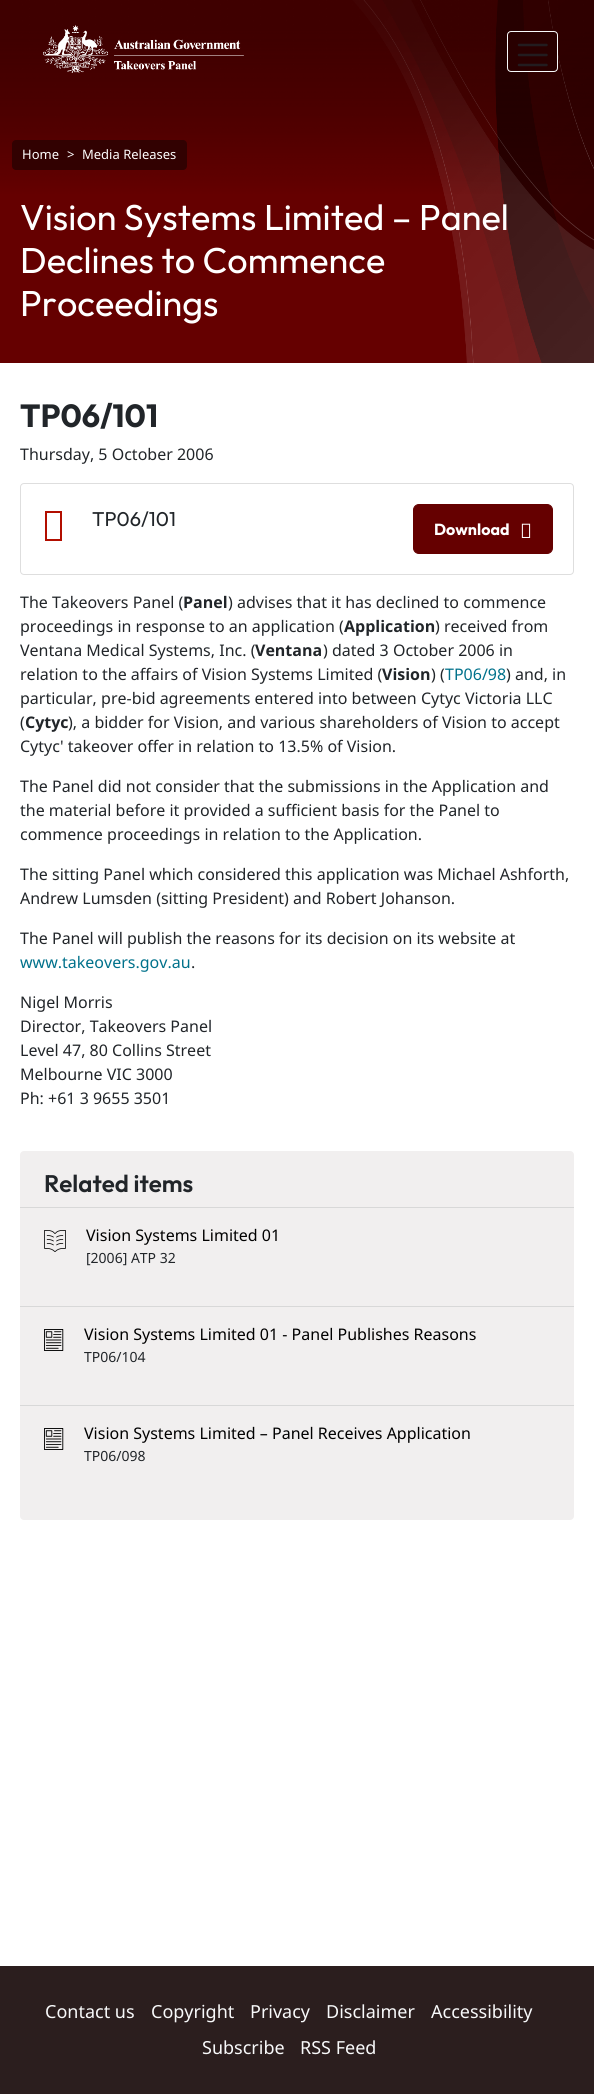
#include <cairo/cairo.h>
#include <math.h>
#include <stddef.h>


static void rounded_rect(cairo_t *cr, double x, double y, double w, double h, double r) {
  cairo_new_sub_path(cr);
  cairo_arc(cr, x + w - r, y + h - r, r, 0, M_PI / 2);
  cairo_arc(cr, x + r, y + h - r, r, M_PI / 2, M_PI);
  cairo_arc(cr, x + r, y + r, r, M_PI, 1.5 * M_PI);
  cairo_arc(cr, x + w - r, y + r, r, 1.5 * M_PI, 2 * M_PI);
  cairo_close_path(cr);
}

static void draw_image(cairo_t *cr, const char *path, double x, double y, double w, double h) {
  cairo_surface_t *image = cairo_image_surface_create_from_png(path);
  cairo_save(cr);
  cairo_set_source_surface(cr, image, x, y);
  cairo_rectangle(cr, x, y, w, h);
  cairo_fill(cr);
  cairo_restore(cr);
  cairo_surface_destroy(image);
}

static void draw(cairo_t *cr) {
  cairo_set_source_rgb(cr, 1, 1, 1);
  cairo_paint(cr);
  draw_image(cr, "images/1.png", 0, 0, 594, 363);
  draw_image(cr, "images/2.png", 43, 25, 201, 48);
  cairo_set_source_rgb(cr, 41 / 255.0, 0, 0);
  rounded_rect(cr, 507.5, 31.5, 50, 40, 3.5);
  cairo_fill_preserve(cr);
  cairo_set_source_rgb(cr, 248 / 255.0, 249 / 255.0, 250 / 255.0);
  cairo_set_line_width(cr, 1);
  cairo_stroke(cr);
  cairo_new_path(cr);
  cairo_move_to(cr, 519, 45);
  cairo_line_to(cr, 546.5, 45);
  cairo_move_to(cr, 519, 55);
  cairo_line_to(cr, 546.5, 55);
  cairo_move_to(cr, 519, 65);
  cairo_line_to(cr, 546.5, 65);
  cairo_set_source_rgb(cr, 35 / 255.0, 28 / 255.0, 31 / 255.0);
  cairo_set_line_width(cr, 2.5);
  cairo_set_line_cap(cr, CAIRO_LINE_CAP_ROUND);
  cairo_stroke(cr);
  cairo_set_source_rgb(cr, 50 / 255.0, 1 / 255.0, 1 / 255.0);
  rounded_rect(cr, 12, 140, 175, 30, 4);
  cairo_fill(cr);
  rounded_rect(cr, 20.5, 483.5, 553, 91, 3.5);
  cairo_set_source_rgb(cr, 222 / 255.0, 222 / 255.0, 222 / 255.0);
  cairo_set_line_width(cr, 1);
  cairo_set_line_cap(cr, CAIRO_LINE_CAP_BUTT);
  cairo_stroke(cr);
  cairo_set_source_rgb(cr, 178 / 255.0, 14 / 255.0, 0);
  cairo_new_path(cr);
  cairo_move_to(cr, 45, 541);
  cairo_line_to(cr, 45, 511);
  cairo_line_to(cr, 62, 511);
  cairo_line_to(cr, 62, 541);
  cairo_close_path(cr);
  cairo_move_to(cr, 47, 539);
  cairo_line_to(cr, 60, 539);
  cairo_line_to(cr, 60, 513);
  cairo_line_to(cr, 47, 513);
  cairo_close_path(cr);
  cairo_fill(cr);
  cairo_set_source_rgb(cr, 101 / 255.0, 0, 0);
  rounded_rect(cr, 413.5, 504.5, 139, 49, 5.5);
  cairo_fill_preserve(cr);
  cairo_stroke(cr);
  draw_image(cr, "images/3.png", 521, 523, 10, 15);
  cairo_set_source_rgb(cr, 241 / 255.0, 239 / 255.0, 239 / 255.0);
  rounded_rect(cr, 20, 1151, 554, 369, 4);
  cairo_fill(cr);
  cairo_set_source_rgb(cr, 216 / 255.0, 216 / 255.0, 216 / 255.0);
  cairo_rectangle(cr, 20, 1207, 554, 1);
  cairo_fill(cr);
  draw_image(cr, "images/4.png", 44, 1230, 22, 22);
  cairo_rectangle(cr, 20, 1306, 554, 1);
  cairo_fill(cr);
  draw_image(cr, "images/5.png", 44, 1329, 20, 22);
  cairo_rectangle(cr, 20, 1405, 554, 1);
  cairo_fill(cr);
  draw_image(cr, "images/5.png", 44, 1428, 20, 22);
  cairo_set_source_rgb(cr, 43 / 255.0, 30 / 255.0, 30 / 255.0);
  cairo_rectangle(cr, 0, 1966, 594, 128);
  cairo_fill(cr);
  cairo_select_font_face(cr, "Noto Sans", CAIRO_FONT_SLANT_NORMAL, CAIRO_FONT_WEIGHT_NORMAL);
  cairo_set_font_size(cr, 13);
  cairo_set_source_rgb(cr, 1, 1, 1);
  cairo_move_to(cr, 22, 159);
  cairo_show_text(cr, "Home");
  cairo_move_to(cr, 67, 159);
  cairo_show_text(cr, ">");
  cairo_move_to(cr, 82, 159);
  cairo_show_text(cr, "Media Releases");
  cairo_select_font_face(cr, "Outfit", CAIRO_FONT_SLANT_NORMAL, CAIRO_FONT_WEIGHT_NORMAL);
  cairo_set_font_size(cr, 36);
  cairo_move_to(cr, 20, 230);
  cairo_show_text(cr, "Vision Systems Limited – Panel");
  cairo_move_to(cr, 20, 273);
  cairo_show_text(cr, "Declines to Commence");
  cairo_move_to(cr, 20, 316);
  cairo_show_text(cr, "Proceedings");
  cairo_select_font_face(cr, "Outfit", CAIRO_FONT_SLANT_NORMAL, CAIRO_FONT_WEIGHT_BOLD);
  cairo_set_font_size(cr, 32);
  cairo_set_source_rgb(cr, 33 / 255.0, 37 / 255.0, 41 / 255.0);
  cairo_move_to(cr, 20, 427);
  cairo_show_text(cr, "TP06/101");
  cairo_select_font_face(cr, "Noto Sans", CAIRO_FONT_SLANT_NORMAL, CAIRO_FONT_WEIGHT_NORMAL);
  cairo_set_font_size(cr, 16);
  cairo_move_to(cr, 20, 460);
  cairo_show_text(cr, "Thursday, 5 October 2006");
  cairo_select_font_face(cr, "Outfit", CAIRO_FONT_SLANT_NORMAL, CAIRO_FONT_WEIGHT_NORMAL);
  cairo_set_font_size(cr, 20);
  cairo_move_to(cr, 92, 526);
  cairo_show_text(cr, "TP06/101");
  cairo_select_font_face(cr, "Outfit", CAIRO_FONT_SLANT_NORMAL, CAIRO_FONT_WEIGHT_BOLD);
  cairo_set_font_size(cr, 16);
  cairo_set_source_rgb(cr, 1, 1, 1);
  cairo_move_to(cr, 434, 535);
  cairo_show_text(cr, "Download");
  cairo_select_font_face(cr, "Noto Sans", CAIRO_FONT_SLANT_NORMAL, CAIRO_FONT_WEIGHT_NORMAL);
  cairo_set_source_rgb(cr, 33 / 255.0, 37 / 255.0, 41 / 255.0);
  cairo_move_to(cr, 20, 608);
  cairo_show_text(cr, "The Takeovers Panel (");
  cairo_select_font_face(cr, "Noto Sans", CAIRO_FONT_SLANT_NORMAL, CAIRO_FONT_WEIGHT_BOLD);
  cairo_move_to(cr, 183, 608);
  cairo_show_text(cr, "Panel");
  cairo_select_font_face(cr, "Noto Sans", CAIRO_FONT_SLANT_NORMAL, CAIRO_FONT_WEIGHT_NORMAL);
  cairo_move_to(cr, 228, 608);
  cairo_show_text(cr, ") advises that it has declined to commence");
  cairo_move_to(cr, 20, 632);
  cairo_show_text(cr, "proceedings in response to an application (");
  cairo_select_font_face(cr, "Noto Sans", CAIRO_FONT_SLANT_NORMAL, CAIRO_FONT_WEIGHT_BOLD);
  cairo_move_to(cr, 344, 632);
  cairo_show_text(cr, "Application");
  cairo_select_font_face(cr, "Noto Sans", CAIRO_FONT_SLANT_NORMAL, CAIRO_FONT_WEIGHT_NORMAL);
  cairo_move_to(cr, 435, 632);
  cairo_show_text(cr, ") received from");
  cairo_move_to(cr, 20, 656);
  cairo_show_text(cr, "Ventana Medical Systems, Inc. (");
  cairo_select_font_face(cr, "Noto Sans", CAIRO_FONT_SLANT_NORMAL, CAIRO_FONT_WEIGHT_BOLD);
  cairo_move_to(cr, 255, 656);
  cairo_show_text(cr, "Ventana");
  cairo_select_font_face(cr, "Noto Sans", CAIRO_FONT_SLANT_NORMAL, CAIRO_FONT_WEIGHT_NORMAL);
  cairo_move_to(cr, 323, 656);
  cairo_show_text(cr, ") dated 3 October 2006 in");
  cairo_move_to(cr, 20, 680);
  cairo_show_text(cr, "relation to the affairs of Vision Systems Limited (");
  cairo_select_font_face(cr, "Noto Sans", CAIRO_FONT_SLANT_NORMAL, CAIRO_FONT_WEIGHT_BOLD);
  cairo_move_to(cr, 382, 680);
  cairo_show_text(cr, "Vision");
  cairo_select_font_face(cr, "Noto Sans", CAIRO_FONT_SLANT_NORMAL, CAIRO_FONT_WEIGHT_NORMAL);
  cairo_move_to(cr, 431, 680);
  cairo_show_text(cr, ") (");
  cairo_set_source_rgb(cr, 0, 113 / 255.0, 139 / 255.0);
  cairo_move_to(cr, 445, 680);
  cairo_show_text(cr, "TP06/98");
  cairo_set_source_rgb(cr, 33 / 255.0, 37 / 255.0, 41 / 255.0);
  cairo_move_to(cr, 506, 680);
  cairo_show_text(cr, ") and, in");
  cairo_move_to(cr, 20, 704);
  cairo_show_text(cr, "particular, pre-bid agreements entered into between Cytyc Victoria LLC");
  cairo_move_to(cr, 20, 728);
  cairo_show_text(cr, "(");
  cairo_select_font_face(cr, "Noto Sans", CAIRO_FONT_SLANT_NORMAL, CAIRO_FONT_WEIGHT_BOLD);
  cairo_move_to(cr, 25, 728);
  cairo_show_text(cr, "Cytyc");
  cairo_select_font_face(cr, "Noto Sans", CAIRO_FONT_SLANT_NORMAL, CAIRO_FONT_WEIGHT_NORMAL);
  cairo_move_to(cr, 68, 728);
  cairo_show_text(cr, "), a bidder for Vision, and various shareholders of Vision to accept");
  cairo_move_to(cr, 20, 752);
  cairo_show_text(cr, "Cytyc' takeover offer in relation to 13.5% of Vision.");
  cairo_move_to(cr, 20, 792);
  cairo_show_text(cr, "The Panel did not consider that the submissions in the Application and");
  cairo_move_to(cr, 20, 816);
  cairo_show_text(cr, "the material before it provided a sufficient basis for the Panel to");
  cairo_move_to(cr, 20, 840);
  cairo_show_text(cr, "commence proceedings in relation to the Application.");
  cairo_move_to(cr, 20, 880);
  cairo_show_text(cr, "The sitting Panel which considered this application was Michael Ashforth,");
  cairo_move_to(cr, 20, 904);
  cairo_show_text(cr, "Andrew Lumsden (sitting President) and Robert Johanson.");
  cairo_move_to(cr, 20, 944);
  cairo_show_text(cr, "The Panel will publish the reasons for its decision on its website at");
  cairo_set_source_rgb(cr, 0, 113 / 255.0, 139 / 255.0);
  cairo_move_to(cr, 20, 968);
  cairo_show_text(cr, "www.takeovers.gov.au");
  cairo_set_source_rgb(cr, 33 / 255.0, 37 / 255.0, 41 / 255.0);
  cairo_move_to(cr, 191, 968);
  cairo_show_text(cr, ".");
  cairo_move_to(cr, 20, 1008);
  cairo_show_text(cr, "Nigel Morris");
  cairo_move_to(cr, 20, 1032);
  cairo_show_text(cr, "Director, Takeovers Panel");
  cairo_move_to(cr, 20, 1056);
  cairo_show_text(cr, "Level 47, 80 Collins Street");
  cairo_move_to(cr, 20, 1080);
  cairo_show_text(cr, "Melbourne VIC 3000");
  cairo_move_to(cr, 20, 1104);
  cairo_show_text(cr, "Ph: +61 3 9655 3501");
  cairo_select_font_face(cr, "Outfit SemiBold", CAIRO_FONT_SLANT_NORMAL, CAIRO_FONT_WEIGHT_NORMAL);
  cairo_set_font_size(cr, 24);
  cairo_move_to(cr, 44, 1192);
  cairo_show_text(cr, "Related items");
  cairo_select_font_face(cr, "Noto Sans", CAIRO_FONT_SLANT_NORMAL, CAIRO_FONT_WEIGHT_NORMAL);
  cairo_set_font_size(cr, 16);
  cairo_set_source_rgb(cr, 0, 0, 0);
  cairo_move_to(cr, 86, 1241);
  cairo_show_text(cr, "Vision Systems Limited 01");
  cairo_set_font_size(cr, 14);
  cairo_set_source_rgb(cr, 33 / 255.0, 37 / 255.0, 41 / 255.0);
  cairo_move_to(cr, 86, 1263);
  cairo_show_text(cr, "[2006] ATP 32");
  cairo_set_font_size(cr, 16);
  cairo_set_source_rgb(cr, 0, 0, 0);
  cairo_move_to(cr, 84, 1340);
  cairo_show_text(cr, "Vision Systems Limited 01 - Panel Publishes Reasons");
  cairo_set_font_size(cr, 14);
  cairo_set_source_rgb(cr, 33 / 255.0, 37 / 255.0, 41 / 255.0);
  cairo_move_to(cr, 84, 1362);
  cairo_show_text(cr, "TP06/104");
  cairo_set_font_size(cr, 16);
  cairo_set_source_rgb(cr, 0, 0, 0);
  cairo_move_to(cr, 84, 1439);
  cairo_show_text(cr, "Vision Systems Limited – Panel Receives Application");
  cairo_set_font_size(cr, 14);
  cairo_set_source_rgb(cr, 33 / 255.0, 37 / 255.0, 41 / 255.0);
  cairo_move_to(cr, 84, 1461);
  cairo_show_text(cr, "TP06/098");
  cairo_set_font_size(cr, 18);
  cairo_set_source_rgb(cr, 248 / 255.0, 249 / 255.0, 250 / 255.0);
  cairo_move_to(cr, 45, 2018);
  cairo_show_text(cr, "Contact us");
  cairo_move_to(cr, 151, 2018);
  cairo_show_text(cr, "Copyright");
  cairo_move_to(cr, 250, 2018);
  cairo_show_text(cr, "Privacy");
  cairo_move_to(cr, 326, 2018);
  cairo_show_text(cr, "Disclaimer");
  cairo_move_to(cr, 431, 2018);
  cairo_show_text(cr, "Accessibility");
  cairo_move_to(cr, 202, 2054);
  cairo_show_text(cr, "Subscribe");
  cairo_move_to(cr, 300, 2054);
  cairo_show_text(cr, "RSS Feed");
}

int main(void) {
  cairo_surface_t *surface = cairo_image_surface_create(CAIRO_FORMAT_RGB24, 594, 2094);
  cairo_t *cr = cairo_create(surface);
  cairo_font_options_t *options = cairo_font_options_create();
  cairo_font_options_set_hint_metrics(options, CAIRO_HINT_METRICS_OFF);
  cairo_font_options_set_hint_style(options, CAIRO_HINT_STYLE_NONE);
  cairo_set_font_options(cr, options);
  cairo_set_miter_limit(cr, 4);
  draw(cr);
  cairo_surface_write_to_png(surface, "out.png");
  cairo_font_options_destroy(options);
  cairo_destroy(cr);
  cairo_surface_destroy(surface);
  return 0;
}
